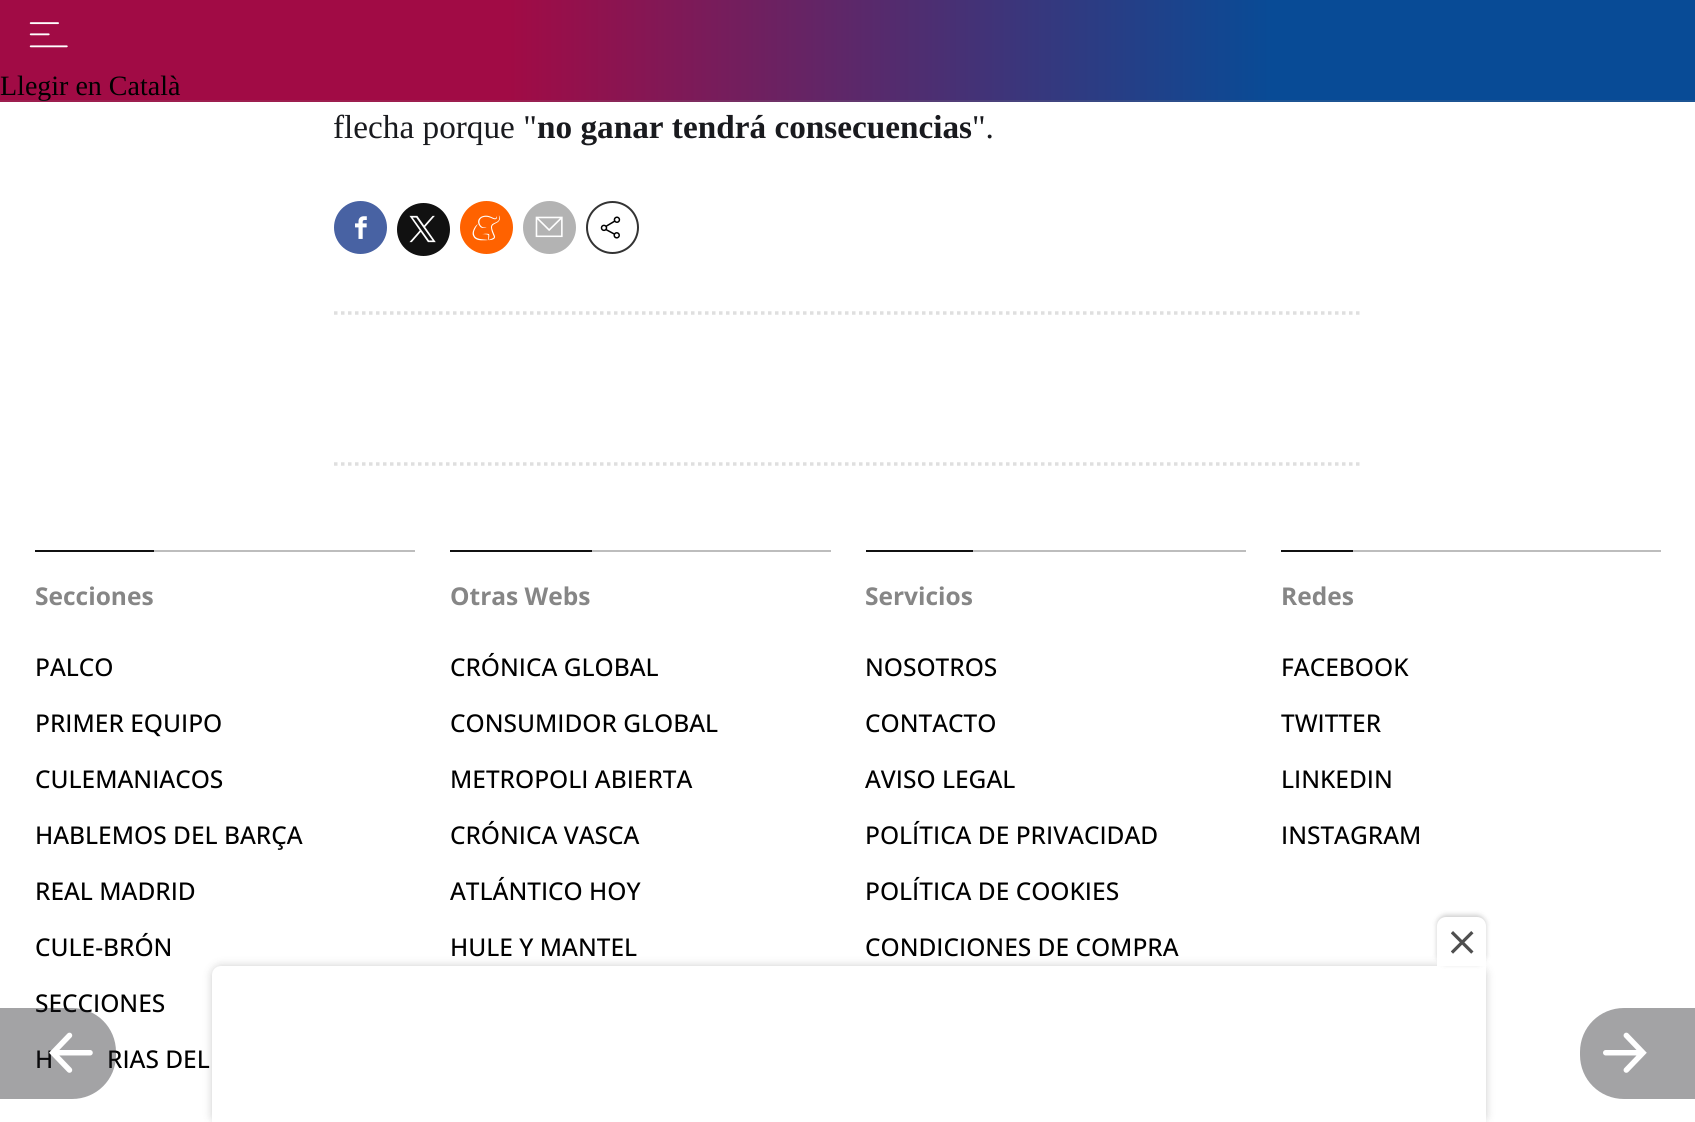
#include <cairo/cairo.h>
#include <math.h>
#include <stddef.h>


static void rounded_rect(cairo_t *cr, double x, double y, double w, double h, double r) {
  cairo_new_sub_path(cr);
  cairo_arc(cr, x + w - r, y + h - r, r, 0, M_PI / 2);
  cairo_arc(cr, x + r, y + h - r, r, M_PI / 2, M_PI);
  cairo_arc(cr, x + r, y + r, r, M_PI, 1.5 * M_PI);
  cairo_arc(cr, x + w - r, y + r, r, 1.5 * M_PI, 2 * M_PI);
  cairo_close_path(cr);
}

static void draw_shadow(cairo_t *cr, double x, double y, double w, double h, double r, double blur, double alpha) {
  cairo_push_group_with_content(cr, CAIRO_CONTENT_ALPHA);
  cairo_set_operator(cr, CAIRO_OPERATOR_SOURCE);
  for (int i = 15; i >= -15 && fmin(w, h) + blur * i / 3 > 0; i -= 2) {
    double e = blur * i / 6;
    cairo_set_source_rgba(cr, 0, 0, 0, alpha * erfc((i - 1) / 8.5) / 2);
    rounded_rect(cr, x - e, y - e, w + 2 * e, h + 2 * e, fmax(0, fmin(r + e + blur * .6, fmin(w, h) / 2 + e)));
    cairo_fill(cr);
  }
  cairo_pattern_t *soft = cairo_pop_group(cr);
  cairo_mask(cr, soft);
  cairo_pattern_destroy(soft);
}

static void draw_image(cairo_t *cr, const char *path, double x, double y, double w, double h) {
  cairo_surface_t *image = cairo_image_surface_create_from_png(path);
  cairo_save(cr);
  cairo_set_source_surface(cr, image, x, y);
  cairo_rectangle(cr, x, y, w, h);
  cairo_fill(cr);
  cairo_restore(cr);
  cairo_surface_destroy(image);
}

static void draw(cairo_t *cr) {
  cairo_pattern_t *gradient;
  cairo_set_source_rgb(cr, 1, 1, 1);
  cairo_paint(cr);
  gradient = cairo_pattern_create_linear(0, 51, 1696, 51);
  cairo_pattern_add_color_stop_rgba(gradient, 0.3, 161 / 255.0, 11 / 255.0, 69 / 255.0, 1);
  cairo_pattern_add_color_stop_rgba(gradient, 0.75, 8 / 255.0, 75 / 255.0, 150 / 255.0, 1);
  cairo_set_source(cr, gradient);
  cairo_pattern_destroy(gradient);
  cairo_rectangle(cr, 0, 0, 1695, 102);
  cairo_fill(cr);
  draw_image(cr, "images/1.png", 29, 22, 39, 26);
  cairo_set_source_rgb(cr, 72 / 255.0, 98 / 255.0, 163 / 255.0);
  cairo_arc(cr, 360.5, 227.5, 26.5, 0, 2 * M_PI);
  cairo_fill(cr);
  draw_image(cr, "images/2.png", 355, 216, 12, 23);
  cairo_set_source_rgb(cr, 17 / 255.0, 17 / 255.0, 17 / 255.0);
  cairo_arc(cr, 423.5, 229.5, 26.5, 0, 2 * M_PI);
  cairo_fill(cr);
  draw_image(cr, "images/3.png", 409, 215, 27, 28);
  cairo_set_source_rgb(cr, 1, 98 / 255.0, 0);
  cairo_arc(cr, 486.5, 227.5, 26.5, 0, 2 * M_PI);
  cairo_fill(cr);
  draw_image(cr, "images/4.png", 472, 215, 28, 26);
  cairo_set_source_rgb(cr, 179 / 255.0, 179 / 255.0, 179 / 255.0);
  cairo_arc(cr, 549.5, 227.5, 26.5, 0, 2 * M_PI);
  cairo_fill(cr);
  draw_image(cr, "images/5.png", 535, 216, 28, 22);
  cairo_arc(cr, 612.5, 227.5, 25.5, 0, 2 * M_PI);
  cairo_set_source_rgb(cr, 51 / 255.0, 51 / 255.0, 51 / 255.0);
  cairo_stroke(cr);
  draw_image(cr, "images/6.png", 600, 216, 21, 23);
  cairo_new_path(cr);
  cairo_move_to(cr, 334, 313);
  cairo_line_to(cr, 1363, 313);
  cairo_set_source_rgb(cr, 223 / 255.0, 223 / 255.0, 223 / 255.0);
  cairo_set_line_width(cr, 3.5);
  cairo_set_dash(cr, (double[]){3.5, 3.5}, 2, 0);
  cairo_stroke(cr);
  cairo_new_path(cr);
  cairo_move_to(cr, 334, 464);
  cairo_line_to(cr, 1363, 464);
  cairo_stroke(cr);
  cairo_set_source_rgb(cr, 163 / 255.0, 163 / 255.0, 165 / 255.0);
  cairo_new_path(cr);
  cairo_move_to(cr, 1624, 1008);
  cairo_line_to(cr, 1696, 1008);
  cairo_line_to(cr, 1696, 1099);
  cairo_line_to(cr, 1624, 1099);
  cairo_curve_to(cr, 1599.5, 1099, 1580, 1079.5, 1580, 1055);
  cairo_line_to(cr, 1580, 1052);
  cairo_curve_to(cr, 1580, 1027.5, 1599.5, 1008, 1624, 1008);
  cairo_close_path(cr);
  cairo_fill(cr);
  draw_image(cr, "images/8.png", 1603, 1032, 44, 41);
  cairo_set_source_rgb(cr, 189 / 255.0, 189 / 255.0, 189 / 255.0);
  cairo_rectangle(cr, 154, 550, 261, 2);
  cairo_fill(cr);
  cairo_set_source_rgb(cr, 17 / 255.0, 17 / 255.0, 17 / 255.0);
  cairo_rectangle(cr, 35, 550, 119, 2);
  cairo_fill(cr);
  cairo_set_source_rgb(cr, 189 / 255.0, 189 / 255.0, 189 / 255.0);
  cairo_rectangle(cr, 592, 550, 239, 2);
  cairo_fill(cr);
  cairo_set_source_rgb(cr, 17 / 255.0, 17 / 255.0, 17 / 255.0);
  cairo_rectangle(cr, 450, 550, 142, 2);
  cairo_fill(cr);
  cairo_set_source_rgb(cr, 189 / 255.0, 189 / 255.0, 189 / 255.0);
  cairo_rectangle(cr, 973, 550, 273, 2);
  cairo_fill(cr);
  cairo_set_source_rgb(cr, 17 / 255.0, 17 / 255.0, 17 / 255.0);
  cairo_rectangle(cr, 866, 550, 107, 2);
  cairo_fill(cr);
  cairo_set_source_rgb(cr, 189 / 255.0, 189 / 255.0, 189 / 255.0);
  cairo_rectangle(cr, 1353, 550, 308, 2);
  cairo_fill(cr);
  cairo_set_source_rgb(cr, 17 / 255.0, 17 / 255.0, 17 / 255.0);
  cairo_rectangle(cr, 1281, 550, 72, 2);
  cairo_fill(cr);
  cairo_set_source_rgb(cr, 0, 0, 0);
  draw_shadow(cr, 212, 966, 1274, 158, 9, 4.5, 0.2);
  cairo_set_source_rgb(cr, 1, 1, 1);
  cairo_new_path(cr);
  cairo_move_to(cr, 221, 966);
  cairo_line_to(cr, 1486, 966);
  cairo_line_to(cr, 1486, 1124);
  cairo_line_to(cr, 212, 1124);
  cairo_line_to(cr, 212, 975);
  cairo_curve_to(cr, 212, 970, 216, 966, 221, 966);
  cairo_close_path(cr);
  cairo_fill(cr);
  cairo_set_source_rgb(cr, 0, 0, 0);
  draw_shadow(cr, 1437, 915, 49, 49, 9, 2.5, 0.2);
  cairo_set_source_rgb(cr, 1, 1, 1);
  cairo_new_path(cr);
  cairo_move_to(cr, 1446, 917);
  cairo_line_to(cr, 1477, 917);
  cairo_curve_to(cr, 1482, 917, 1486, 921, 1486, 926);
  cairo_line_to(cr, 1486, 966);
  cairo_line_to(cr, 1437, 966);
  cairo_line_to(cr, 1437, 926);
  cairo_curve_to(cr, 1437, 921, 1441, 917, 1446, 917);
  cairo_close_path(cr);
  cairo_fill(cr);
  draw_image(cr, "images/9.png", 1451, 931, 23, 23);
  cairo_select_font_face(cr, "Liberation Serif", CAIRO_FONT_SLANT_NORMAL, CAIRO_FONT_WEIGHT_NORMAL);
  cairo_set_font_size(cr, 28);
  cairo_set_source_rgb(cr, 0, 0, 0);
  cairo_move_to(cr, 0, 95);
  cairo_show_text(cr, "Llegir en Català");
  cairo_set_source_rgba(cr, 134 / 255.0, 134 / 255.0, 134 / 255.0, 0.16);
  cairo_rectangle(cr, 0, 100, 1695, 2);
  cairo_fill(cr);
  cairo_set_font_size(cr, 33.25);
  cairo_set_source_rgb(cr, 25 / 255.0, 26 / 255.0, 30 / 255.0);
  cairo_move_to(cr, 333, 138);
  cairo_show_text(cr, "flecha porque \"");
  cairo_select_font_face(cr, "Liberation Serif", CAIRO_FONT_SLANT_NORMAL, CAIRO_FONT_WEIGHT_BOLD);
  cairo_move_to(cr, 537, 138);
  cairo_show_text(cr, "no ganar tendrá consecuencias");
  cairo_select_font_face(cr, "Liberation Serif", CAIRO_FONT_SLANT_NORMAL, CAIRO_FONT_WEIGHT_NORMAL);
  cairo_move_to(cr, 972, 138);
  cairo_show_text(cr, "\".");
  cairo_select_font_face(cr, "Open Sans", CAIRO_FONT_SLANT_NORMAL, CAIRO_FONT_WEIGHT_BOLD);
  cairo_set_font_size(cr, 24.5);
  cairo_set_source_rgb(cr, 134 / 255.0, 134 / 255.0, 134 / 255.0);
  cairo_move_to(cr, 35, 605);
  cairo_show_text(cr, "Secciones");
  cairo_select_font_face(cr, "Open Sans Medium", CAIRO_FONT_SLANT_NORMAL, CAIRO_FONT_WEIGHT_NORMAL);
  cairo_set_source_rgb(cr, 0, 0, 0);
  cairo_move_to(cr, 35, 676);
  cairo_show_text(cr, "PALCO");
  cairo_move_to(cr, 35, 732);
  cairo_show_text(cr, "PRIMER EQUIPO");
  cairo_move_to(cr, 35, 788);
  cairo_show_text(cr, "CULEMANIACOS");
  cairo_move_to(cr, 35, 844);
  cairo_show_text(cr, "HABLEMOS DEL BARÇA");
  cairo_move_to(cr, 35, 900);
  cairo_show_text(cr, "REAL MADRID");
  cairo_move_to(cr, 35, 956);
  cairo_show_text(cr, "CULE-BRÓN");
  cairo_move_to(cr, 35, 1012);
  cairo_show_text(cr, "SECCIONES");
  cairo_move_to(cr, 35, 1068);
  cairo_show_text(cr, "H");
  cairo_move_to(cr, 107, 1068);
  cairo_show_text(cr, "RIAS DEL");
  cairo_set_source_rgba(cr, 25 / 255.0, 26 / 255.0, 30 / 255.0, 0.4);
  cairo_new_path(cr);
  cairo_move_to(cr, 0, 1008);
  cairo_line_to(cr, 72, 1008);
  cairo_curve_to(cr, 96.5, 1008, 116, 1027.5, 116, 1052);
  cairo_line_to(cr, 116, 1055);
  cairo_curve_to(cr, 116, 1079.5, 96.5, 1099, 72, 1099);
  cairo_line_to(cr, 0, 1099);
  cairo_close_path(cr);
  cairo_fill(cr);
  draw_image(cr, "images/7.png", 49, 1032, 44, 41);
  cairo_select_font_face(cr, "Open Sans", CAIRO_FONT_SLANT_NORMAL, CAIRO_FONT_WEIGHT_BOLD);
  cairo_set_source_rgb(cr, 134 / 255.0, 134 / 255.0, 134 / 255.0);
  cairo_move_to(cr, 450, 605);
  cairo_show_text(cr, "Otras Webs");
  cairo_select_font_face(cr, "Open Sans Medium", CAIRO_FONT_SLANT_NORMAL, CAIRO_FONT_WEIGHT_NORMAL);
  cairo_set_source_rgb(cr, 0, 0, 0);
  cairo_move_to(cr, 450, 676);
  cairo_show_text(cr, "CRÓNICA GLOBAL");
  cairo_move_to(cr, 450, 732);
  cairo_show_text(cr, "CONSUMIDOR GLOBAL");
  cairo_move_to(cr, 450, 788);
  cairo_show_text(cr, "METROPOLI ABIERTA");
  cairo_move_to(cr, 450, 844);
  cairo_show_text(cr, "CRÓNICA VASCA");
  cairo_move_to(cr, 450, 900);
  cairo_show_text(cr, "ATLÁNTICO HOY");
  cairo_move_to(cr, 450, 956);
  cairo_show_text(cr, "HULE Y MANTEL");
  cairo_select_font_face(cr, "Open Sans", CAIRO_FONT_SLANT_NORMAL, CAIRO_FONT_WEIGHT_BOLD);
  cairo_set_source_rgb(cr, 134 / 255.0, 134 / 255.0, 134 / 255.0);
  cairo_move_to(cr, 865, 605);
  cairo_show_text(cr, "Servicios");
  cairo_select_font_face(cr, "Open Sans Medium", CAIRO_FONT_SLANT_NORMAL, CAIRO_FONT_WEIGHT_NORMAL);
  cairo_set_source_rgb(cr, 0, 0, 0);
  cairo_move_to(cr, 865, 676);
  cairo_show_text(cr, "NOSOTROS");
  cairo_move_to(cr, 865, 732);
  cairo_show_text(cr, "CONTACTO");
  cairo_move_to(cr, 865, 788);
  cairo_show_text(cr, "AVISO LEGAL");
  cairo_move_to(cr, 865, 844);
  cairo_show_text(cr, "POLÍTICA DE PRIVACIDAD");
  cairo_move_to(cr, 865, 900);
  cairo_show_text(cr, "POLÍTICA DE COOKIES");
  cairo_move_to(cr, 865, 956);
  cairo_show_text(cr, "CONDICIONES DE COMPRA");
  cairo_select_font_face(cr, "Open Sans", CAIRO_FONT_SLANT_NORMAL, CAIRO_FONT_WEIGHT_BOLD);
  cairo_set_source_rgb(cr, 134 / 255.0, 134 / 255.0, 134 / 255.0);
  cairo_move_to(cr, 1281, 605);
  cairo_show_text(cr, "Redes");
  cairo_select_font_face(cr, "Open Sans Medium", CAIRO_FONT_SLANT_NORMAL, CAIRO_FONT_WEIGHT_NORMAL);
  cairo_set_source_rgb(cr, 0, 0, 0);
  cairo_move_to(cr, 1281, 676);
  cairo_show_text(cr, "FACEBOOK");
  cairo_move_to(cr, 1281, 732);
  cairo_show_text(cr, "TWITTER");
  cairo_move_to(cr, 1281, 788);
  cairo_show_text(cr, "LINKEDIN");
  cairo_move_to(cr, 1281, 844);
  cairo_show_text(cr, "INSTAGRAM");
}

int main(void) {
  cairo_surface_t *surface = cairo_image_surface_create(CAIRO_FORMAT_RGB24, 1695, 1122);
  cairo_t *cr = cairo_create(surface);
  cairo_font_options_t *options = cairo_font_options_create();
  cairo_font_options_set_hint_metrics(options, CAIRO_HINT_METRICS_OFF);
  cairo_font_options_set_hint_style(options, CAIRO_HINT_STYLE_NONE);
  cairo_set_font_options(cr, options);
  cairo_set_miter_limit(cr, 4);
  draw(cr);
  cairo_surface_write_to_png(surface, "out.png");
  cairo_font_options_destroy(options);
  cairo_destroy(cr);
  cairo_surface_destroy(surface);
  return 0;
}
